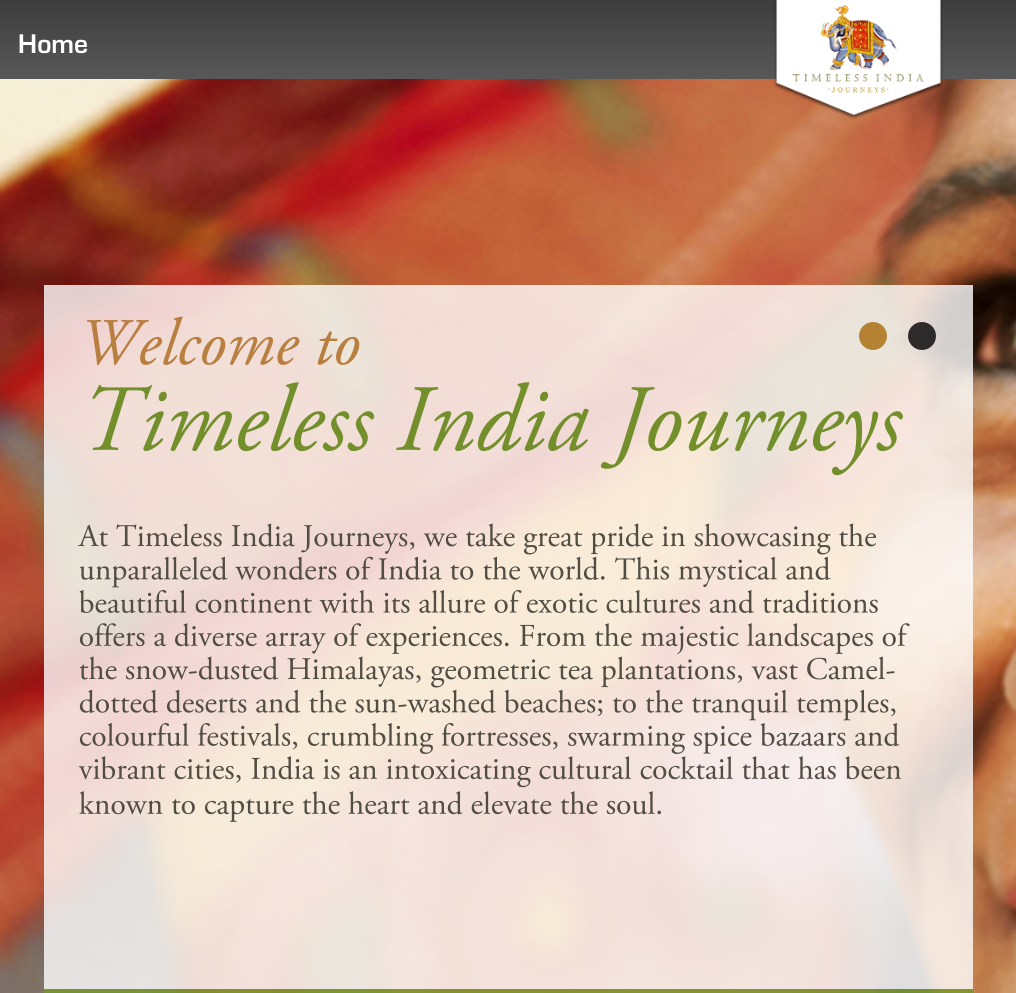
#include <cairo/cairo.h>
#include <math.h>
#include <stddef.h>


static void draw_image(cairo_t *cr, const char *path, double x, double y, double w, double h) {
  cairo_surface_t *image = cairo_image_surface_create_from_png(path);
  cairo_save(cr);
  cairo_set_source_surface(cr, image, x, y);
  cairo_rectangle(cr, x, y, w, h);
  cairo_fill(cr);
  cairo_restore(cr);
  cairo_surface_destroy(image);
}

static void draw(cairo_t *cr) {
  cairo_pattern_t *gradient;
  cairo_set_source_rgb(cr, 1, 1, 1);
  cairo_paint(cr);
  gradient = cairo_pattern_create_linear(508, 79, 508, 0);
  cairo_pattern_add_color_stop_rgba(gradient, 0, 88 / 255.0, 88 / 255.0, 88 / 255.0, 1);
  cairo_pattern_add_color_stop_rgba(gradient, 1, 61 / 255.0, 61 / 255.0, 61 / 255.0, 1);
  cairo_set_source(cr, gradient);
  cairo_pattern_destroy(gradient);
  cairo_rectangle(cr, 0, 0, 1016, 79);
  cairo_fill(cr);
  draw_image(cr, "images/13.png", 0, 79, 1016, 914);
  draw_image(cr, "images/1.png", 773, 0, 170, 120);
  cairo_set_source_rgba(cr, 1, 1, 1, 0.8);
  cairo_rectangle(cr, 44, 285, 929, 704);
  cairo_fill(cr);
  draw_image(cr, "images/2.png", 87, 316, 273, 49);
  draw_image(cr, "images/3.png", 92, 382, 811, 94);
  cairo_set_source_rgb(cr, 181 / 255.0, 129 / 255.0, 51 / 255.0);
  cairo_arc(cr, 873, 336, 14, 0, 2 * M_PI);
  cairo_fill(cr);
  cairo_set_source_rgba(cr, 0, 0, 0, 0.8);
  cairo_arc(cr, 922, 336, 14, 0, 2 * M_PI);
  cairo_fill(cr);
  draw_image(cr, "images/4.png", 78, 523, 798, 32);
  draw_image(cr, "images/5.png", 80, 556, 751, 32);
  draw_image(cr, "images/6.png", 79, 590, 799, 24);
  draw_image(cr, "images/7.png", 79, 623, 831, 32);
  draw_image(cr, "images/8.png", 79, 656, 816, 32);
  draw_image(cr, "images/9.png", 79, 689, 817, 32);
  draw_image(cr, "images/10.png", 79, 723, 821, 31);
  draw_image(cr, "images/11.png", 78, 756, 824, 32);
  draw_image(cr, "images/12.png", 79, 791, 582, 31);
  cairo_set_source_rgba(cr, 115 / 255.0, 153 / 255.0, 43 / 255.0, 0.8);
  cairo_rectangle(cr, 44, 989, 929, 4);
  cairo_fill(cr);
  cairo_select_font_face(cr, "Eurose", CAIRO_FONT_SLANT_NORMAL, CAIRO_FONT_WEIGHT_NORMAL);
  cairo_set_font_size(cr, 28);
  cairo_set_source_rgb(cr, 1, 1, 1);
  cairo_move_to(cr, 18, 53);
  cairo_show_text(cr, "Home");
}

int main(void) {
  cairo_surface_t *surface = cairo_image_surface_create(CAIRO_FORMAT_RGB24, 1016, 993);
  cairo_t *cr = cairo_create(surface);
  cairo_font_options_t *options = cairo_font_options_create();
  cairo_font_options_set_hint_metrics(options, CAIRO_HINT_METRICS_OFF);
  cairo_font_options_set_hint_style(options, CAIRO_HINT_STYLE_NONE);
  cairo_set_font_options(cr, options);
  cairo_set_miter_limit(cr, 4);
  draw(cr);
  cairo_surface_write_to_png(surface, "out.png");
  cairo_font_options_destroy(options);
  cairo_destroy(cr);
  cairo_surface_destroy(surface);
  return 0;
}
